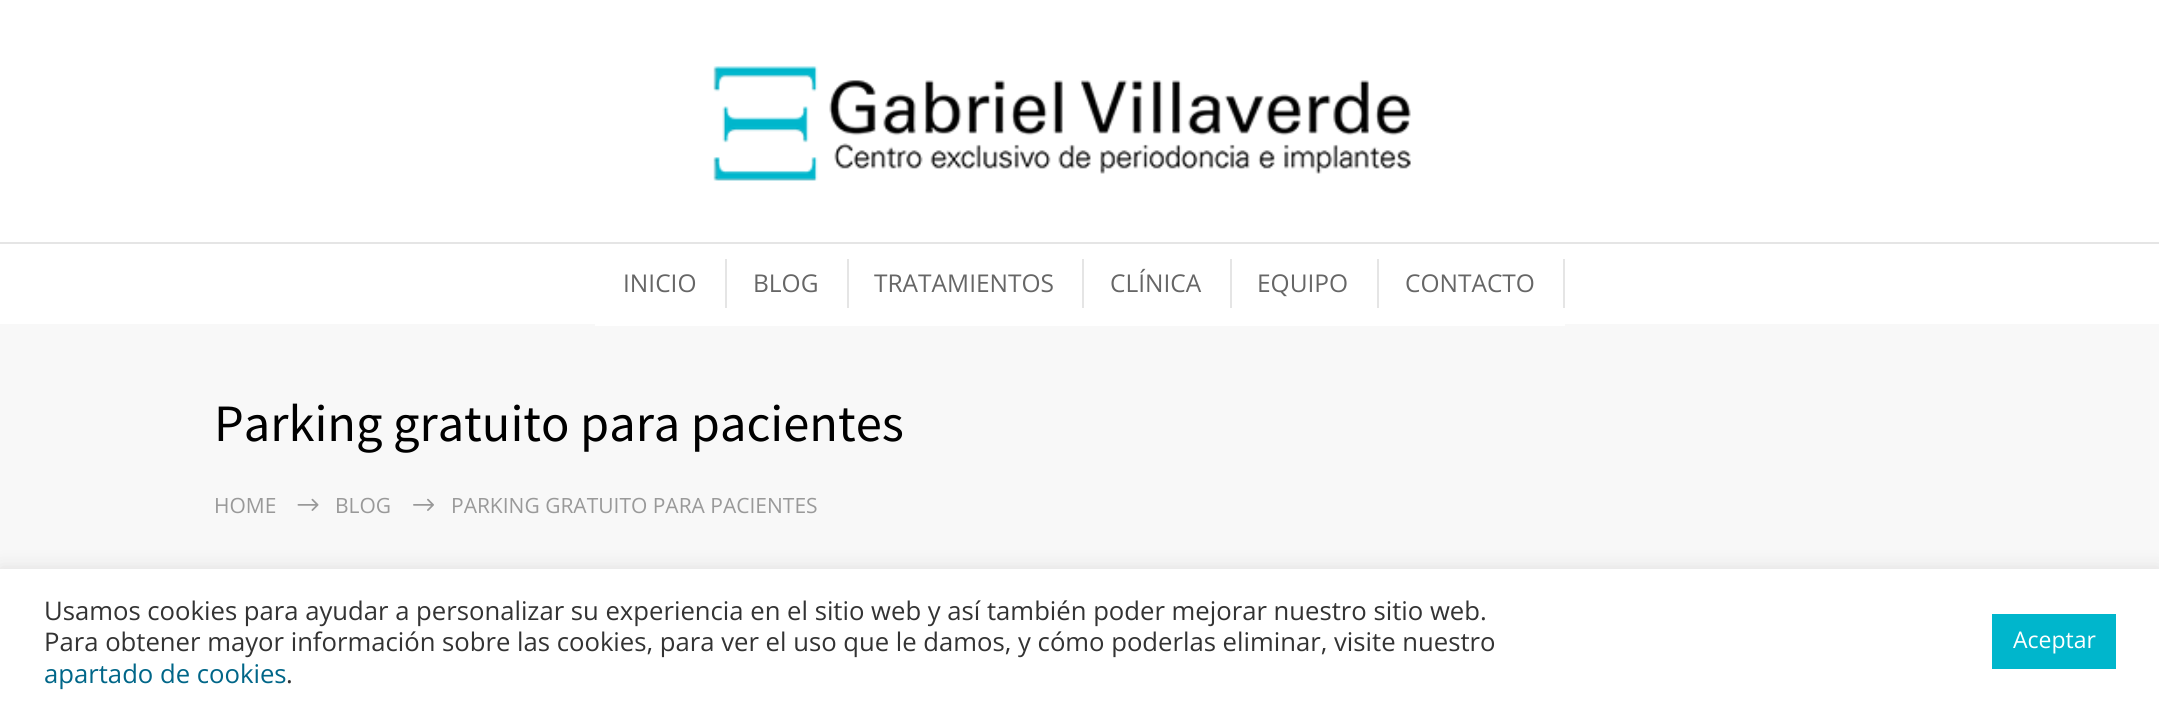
#include <cairo/cairo.h>
#include <math.h>
#include <stddef.h>


static void rounded_rect(cairo_t *cr, double x, double y, double w, double h, double r) {
  cairo_new_sub_path(cr);
  cairo_arc(cr, x + w - r, y + h - r, r, 0, M_PI / 2);
  cairo_arc(cr, x + r, y + h - r, r, M_PI / 2, M_PI);
  cairo_arc(cr, x + r, y + r, r, M_PI, 1.5 * M_PI);
  cairo_arc(cr, x + w - r, y + r, r, 1.5 * M_PI, 2 * M_PI);
  cairo_close_path(cr);
}

static void draw_shadow(cairo_t *cr, double x, double y, double w, double h, double r, double blur, double alpha) {
  cairo_push_group_with_content(cr, CAIRO_CONTENT_ALPHA);
  cairo_set_operator(cr, CAIRO_OPERATOR_SOURCE);
  for (int i = 15; i >= -15 && fmin(w, h) + blur * i / 3 > 0; i -= 2) {
    double e = blur * i / 6;
    cairo_set_source_rgba(cr, 0, 0, 0, alpha * erfc((i - 1) / 8.5) / 2);
    rounded_rect(cr, x - e, y - e, w + 2 * e, h + 2 * e, fmax(0, fmin(r + e + blur * .6, fmin(w, h) / 2 + e)));
    cairo_fill(cr);
  }
  cairo_pattern_t *soft = cairo_pop_group(cr);
  cairo_mask(cr, soft);
  cairo_pattern_destroy(soft);
}

static void draw_image(cairo_t *cr, const char *path, double x, double y, double w, double h) {
  cairo_surface_t *image = cairo_image_surface_create_from_png(path);
  cairo_save(cr);
  cairo_set_source_surface(cr, image, x, y);
  cairo_rectangle(cr, x, y, w, h);
  cairo_fill(cr);
  cairo_restore(cr);
  cairo_surface_destroy(image);
}

static void draw(cairo_t *cr) {
  cairo_set_source_rgb(cr, 248 / 255.0, 248 / 255.0, 248 / 255.0);
  cairo_paint(cr);
  cairo_set_source_rgb(cr, 1, 1, 1);
  cairo_rectangle(cr, 0, 0, 2159, 242);
  cairo_fill(cr);
  draw_image(cr, "images/1.png", 713, 66, 698, 115);
  cairo_set_source_rgb(cr, 229 / 255.0, 229 / 255.0, 229 / 255.0);
  cairo_rectangle(cr, 0, 242, 2159, 2);
  cairo_fill(cr);
  cairo_set_source_rgb(cr, 1, 1, 1);
  cairo_rectangle(cr, 0, 244, 2159, 80);
  cairo_fill(cr);
  cairo_rectangle(cr, 595, 324, 970, 2);
  cairo_fill(cr);
  cairo_set_source_rgb(cr, 229 / 255.0, 229 / 255.0, 229 / 255.0);
  cairo_rectangle(cr, 725, 259, 2, 49);
  cairo_fill(cr);
  cairo_rectangle(cr, 847, 259, 2, 49);
  cairo_fill(cr);
  cairo_rectangle(cr, 1082, 259, 2, 49);
  cairo_fill(cr);
  cairo_rectangle(cr, 1230, 259, 2, 49);
  cairo_fill(cr);
  cairo_rectangle(cr, 1377, 259, 2, 49);
  cairo_fill(cr);
  cairo_rectangle(cr, 1563, 259, 2, 49);
  cairo_fill(cr);
  draw_image(cr, "images/2.png", 297, 498, 22, 13);
  draw_image(cr, "images/3.png", 413, 498, 21, 13);
  cairo_set_source_rgb(cr, 172 / 255.0, 171 / 255.0, 171 / 255.0);
  draw_shadow(cr, 0, 567, 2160, 144, 0, 9, 0.3);
  cairo_set_source_rgb(cr, 1, 1, 1);
  cairo_rectangle(cr, 0, 569, 2159, 143);
  cairo_fill(cr);
  cairo_set_source_rgb(cr, 0, 182 / 255.0, 204 / 255.0);
  cairo_rectangle(cr, 1992, 614, 124, 55);
  cairo_fill(cr);
  cairo_select_font_face(cr, "Open Sans", CAIRO_FONT_SLANT_NORMAL, CAIRO_FONT_WEIGHT_NORMAL);
  cairo_set_font_size(cr, 24.5);
  cairo_set_source_rgb(cr, 102 / 255.0, 102 / 255.0, 102 / 255.0);
  cairo_move_to(cr, 623, 292);
  cairo_show_text(cr, "INICIO");
  cairo_move_to(cr, 753, 292);
  cairo_show_text(cr, "BLOG");
  cairo_move_to(cr, 874, 292);
  cairo_show_text(cr, "TRATAMIENTOS");
  cairo_move_to(cr, 1110, 292);
  cairo_show_text(cr, "CLÍNICA");
  cairo_move_to(cr, 1257, 292);
  cairo_show_text(cr, "EQUIPO");
  cairo_move_to(cr, 1405, 292);
  cairo_show_text(cr, "CONTACTO");
  cairo_select_font_face(cr, "Source Sans Pro", CAIRO_FONT_SLANT_NORMAL, CAIRO_FONT_WEIGHT_NORMAL);
  cairo_set_font_size(cr, 52.5);
  cairo_set_source_rgb(cr, 0, 0, 0);
  cairo_move_to(cr, 214, 441);
  cairo_show_text(cr, "Parking gratuito para pacientes");
  cairo_select_font_face(cr, "Open Sans", CAIRO_FONT_SLANT_NORMAL, CAIRO_FONT_WEIGHT_NORMAL);
  cairo_set_font_size(cr, 21);
  cairo_set_source_rgb(cr, 153 / 255.0, 153 / 255.0, 153 / 255.0);
  cairo_move_to(cr, 214, 513);
  cairo_show_text(cr, "HOME");
  cairo_move_to(cr, 335, 513);
  cairo_show_text(cr, "BLOG");
  cairo_move_to(cr, 451, 513);
  cairo_show_text(cr, "PARKING GRATUITO PARA PACIENTES");
  cairo_set_font_size(cr, 25.67);
  cairo_set_source_rgb(cr, 51 / 255.0, 51 / 255.0, 51 / 255.0);
  cairo_move_to(cr, 44, 620);
  cairo_show_text(cr, "Usamos cookies para ayudar a personalizar su experiencia en el sitio web y así también poder mejorar nuestro sitio web.");
  cairo_move_to(cr, 44, 651);
  cairo_show_text(cr, "Para obtener mayor información sobre las cookies, para ver el uso que le damos, y cómo poderlas eliminar, visite nuestro");
  cairo_set_source_rgb(cr, 0, 102 / 255.0, 136 / 255.0);
  cairo_move_to(cr, 44, 683);
  cairo_show_text(cr, "apartado de cookies");
  cairo_set_source_rgb(cr, 51 / 255.0, 51 / 255.0, 51 / 255.0);
  cairo_move_to(cr, 286, 683);
  cairo_show_text(cr, ".");
  cairo_set_font_size(cr, 23);
  cairo_set_source_rgb(cr, 1, 1, 1);
  cairo_move_to(cr, 2013, 648);
  cairo_show_text(cr, "Aceptar");
}

int main(void) {
  cairo_surface_t *surface = cairo_image_surface_create(CAIRO_FORMAT_RGB24, 2159, 712);
  cairo_t *cr = cairo_create(surface);
  cairo_font_options_t *options = cairo_font_options_create();
  cairo_font_options_set_hint_metrics(options, CAIRO_HINT_METRICS_OFF);
  cairo_font_options_set_hint_style(options, CAIRO_HINT_STYLE_NONE);
  cairo_set_font_options(cr, options);
  cairo_set_miter_limit(cr, 4);
  draw(cr);
  cairo_surface_write_to_png(surface, "out.png");
  cairo_font_options_destroy(options);
  cairo_destroy(cr);
  cairo_surface_destroy(surface);
  return 0;
}
